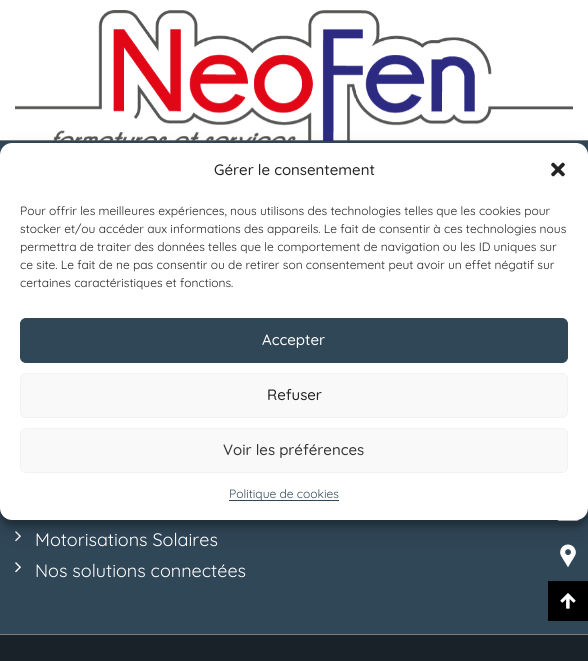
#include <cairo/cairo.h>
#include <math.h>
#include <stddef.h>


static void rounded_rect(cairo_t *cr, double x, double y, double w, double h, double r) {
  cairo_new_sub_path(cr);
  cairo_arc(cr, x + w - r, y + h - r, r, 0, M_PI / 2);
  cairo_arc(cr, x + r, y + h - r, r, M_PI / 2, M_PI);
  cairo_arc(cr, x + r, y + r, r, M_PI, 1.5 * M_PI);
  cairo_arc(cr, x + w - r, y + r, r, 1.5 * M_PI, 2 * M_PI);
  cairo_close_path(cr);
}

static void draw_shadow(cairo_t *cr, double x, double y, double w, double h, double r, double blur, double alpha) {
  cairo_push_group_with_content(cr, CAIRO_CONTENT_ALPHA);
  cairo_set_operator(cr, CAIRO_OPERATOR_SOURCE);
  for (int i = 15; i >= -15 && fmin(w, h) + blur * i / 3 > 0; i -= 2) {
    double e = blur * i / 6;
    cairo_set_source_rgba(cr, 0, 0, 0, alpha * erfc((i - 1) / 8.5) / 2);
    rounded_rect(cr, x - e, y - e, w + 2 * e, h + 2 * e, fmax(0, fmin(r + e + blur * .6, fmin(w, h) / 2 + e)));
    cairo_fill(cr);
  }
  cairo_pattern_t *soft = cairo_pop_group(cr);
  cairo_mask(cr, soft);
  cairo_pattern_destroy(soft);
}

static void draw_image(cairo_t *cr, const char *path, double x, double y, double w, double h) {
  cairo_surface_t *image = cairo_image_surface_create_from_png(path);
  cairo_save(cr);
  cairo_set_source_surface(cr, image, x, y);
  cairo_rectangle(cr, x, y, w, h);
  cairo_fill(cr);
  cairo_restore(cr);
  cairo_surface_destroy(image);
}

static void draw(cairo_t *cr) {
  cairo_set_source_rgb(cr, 48 / 255.0, 71 / 255.0, 88 / 255.0);
  cairo_paint(cr);
  cairo_set_source_rgb(cr, 1, 1, 1);
  cairo_rectangle(cr, 0, 0, 588, 140);
  cairo_fill(cr);
  cairo_set_source_rgb(cr, 124 / 255.0, 124 / 255.0, 124 / 255.0);
  cairo_rectangle(cr, 0, 140, 588, 1);
  cairo_fill(cr);
  draw_image(cr, "images/2.png", 15, 10, 558, 131);
  draw_image(cr, "images/3.png", 15, 531, 6, 11);
  draw_image(cr, "images/4.png", 557, 519, 22, 2);
  cairo_set_source_rgb(cr, 0, 0, 0);
  draw_shadow(cr, 0, 149, 588, 377, 12, 3, 0.23);
  draw_image(cr, "images/5.png", 560, 544, 16, 24);
  draw_shadow(cr, 0, 153, 588, 377, 12, 10, 0.19);
  cairo_set_source_rgb(cr, 1, 1, 1);
  rounded_rect(cr, 0, 143, 588, 377, 12);
  cairo_fill(cr);
  draw_image(cr, "images/1.png", 551, 162, 14, 15);
  cairo_set_source_rgb(cr, 48 / 255.0, 71 / 255.0, 88 / 255.0);
  rounded_rect(cr, 20.5, 318.5, 547, 44, 5.5);
  cairo_fill_preserve(cr);
  cairo_set_line_width(cr, 1);
  cairo_stroke(cr);
  cairo_set_source_rgb(cr, 249 / 255.0, 249 / 255.0, 249 / 255.0);
  rounded_rect(cr, 20.5, 373.5, 547, 44, 5.5);
  cairo_fill_preserve(cr);
  cairo_set_source_rgb(cr, 242 / 255.0, 242 / 255.0, 242 / 255.0);
  cairo_stroke(cr);
  cairo_set_source_rgb(cr, 249 / 255.0, 249 / 255.0, 249 / 255.0);
  rounded_rect(cr, 20.5, 428.5, 547, 44, 5.5);
  cairo_fill_preserve(cr);
  cairo_set_source_rgb(cr, 242 / 255.0, 242 / 255.0, 242 / 255.0);
  cairo_stroke(cr);
  cairo_set_source_rgb(cr, 48 / 255.0, 71 / 255.0, 88 / 255.0);
  cairo_rectangle(cr, 229, 500, 110, 1);
  cairo_fill(cr);
  draw_image(cr, "images/3.png", 15, 562, 6, 11);
  cairo_set_source_rgb(cr, 26 / 255.0, 34 / 255.0, 41 / 255.0);
  cairo_rectangle(cr, 0, 635, 588, 26);
  cairo_fill(cr);
  cairo_set_source_rgb(cr, 124 / 255.0, 124 / 255.0, 124 / 255.0);
  cairo_rectangle(cr, 0, 634, 588, 1);
  cairo_fill(cr);
  cairo_set_source_rgb(cr, 0, 0, 0);
  cairo_rectangle(cr, 548, 581, 40, 40);
  cairo_fill(cr);
  draw_image(cr, "images/6.png", 560, 593, 16, 16);
  cairo_select_font_face(cr, "Quicksand Medium", CAIRO_FONT_SLANT_NORMAL, CAIRO_FONT_WEIGHT_NORMAL);
  cairo_set_font_size(cr, 15);
  cairo_set_source_rgb(cr, 34 / 255.0, 34 / 255.0, 34 / 255.0);
  cairo_move_to(cr, 214, 175);
  cairo_show_text(cr, "Gérer le consentement");
  cairo_select_font_face(cr, "Quicksand", CAIRO_FONT_SLANT_NORMAL, CAIRO_FONT_WEIGHT_NORMAL);
  cairo_set_font_size(cr, 12);
  cairo_move_to(cr, 20, 215);
  cairo_show_text(cr, "Pour offrir les meilleures expériences, nous utilisons des technologies telles que les cookies pour");
  cairo_move_to(cr, 20, 233);
  cairo_show_text(cr, "stocker et/ou accéder aux informations des appareils. Le fait de consentir à ces technologies nous");
  cairo_move_to(cr, 20, 251);
  cairo_show_text(cr, "permettra de traiter des données telles que le comportement de navigation ou les ID uniques sur");
  cairo_move_to(cr, 20, 269);
  cairo_show_text(cr, "ce site. Le fait de ne pas consentir ou de retirer son consentement peut avoir un effet négatif sur");
  cairo_move_to(cr, 20, 287);
  cairo_show_text(cr, "certaines caractéristiques et fonctions.");
  cairo_select_font_face(cr, "Quicksand Medium", CAIRO_FONT_SLANT_NORMAL, CAIRO_FONT_WEIGHT_NORMAL);
  cairo_set_font_size(cr, 15);
  cairo_set_source_rgb(cr, 1, 1, 1);
  cairo_move_to(cr, 262, 345);
  cairo_show_text(cr, "Accepter");
  cairo_set_source_rgb(cr, 34 / 255.0, 34 / 255.0, 34 / 255.0);
  cairo_move_to(cr, 267, 400);
  cairo_show_text(cr, "Refuser");
  cairo_set_source_rgb(cr, 51 / 255.0, 51 / 255.0, 51 / 255.0);
  cairo_move_to(cr, 223, 455);
  cairo_show_text(cr, "Voir les préférences");
  cairo_select_font_face(cr, "Quicksand", CAIRO_FONT_SLANT_NORMAL, CAIRO_FONT_WEIGHT_NORMAL);
  cairo_set_font_size(cr, 12);
  cairo_set_source_rgb(cr, 48 / 255.0, 71 / 255.0, 88 / 255.0);
  cairo_move_to(cr, 229, 498);
  cairo_show_text(cr, "Politique de cookies");
  cairo_set_font_size(cr, 18);
  cairo_set_source_rgb(cr, 1, 1, 1);
  cairo_move_to(cr, 35, 546);
  cairo_show_text(cr, "Motorisations Solaires");
  cairo_move_to(cr, 35, 577);
  cairo_show_text(cr, "Nos solutions connectées");
}

int main(void) {
  cairo_surface_t *surface = cairo_image_surface_create(CAIRO_FORMAT_RGB24, 588, 661);
  cairo_t *cr = cairo_create(surface);
  cairo_font_options_t *options = cairo_font_options_create();
  cairo_font_options_set_hint_metrics(options, CAIRO_HINT_METRICS_OFF);
  cairo_font_options_set_hint_style(options, CAIRO_HINT_STYLE_NONE);
  cairo_set_font_options(cr, options);
  cairo_set_miter_limit(cr, 4);
  draw(cr);
  cairo_surface_write_to_png(surface, "out.png");
  cairo_font_options_destroy(options);
  cairo_destroy(cr);
  cairo_surface_destroy(surface);
  return 0;
}
